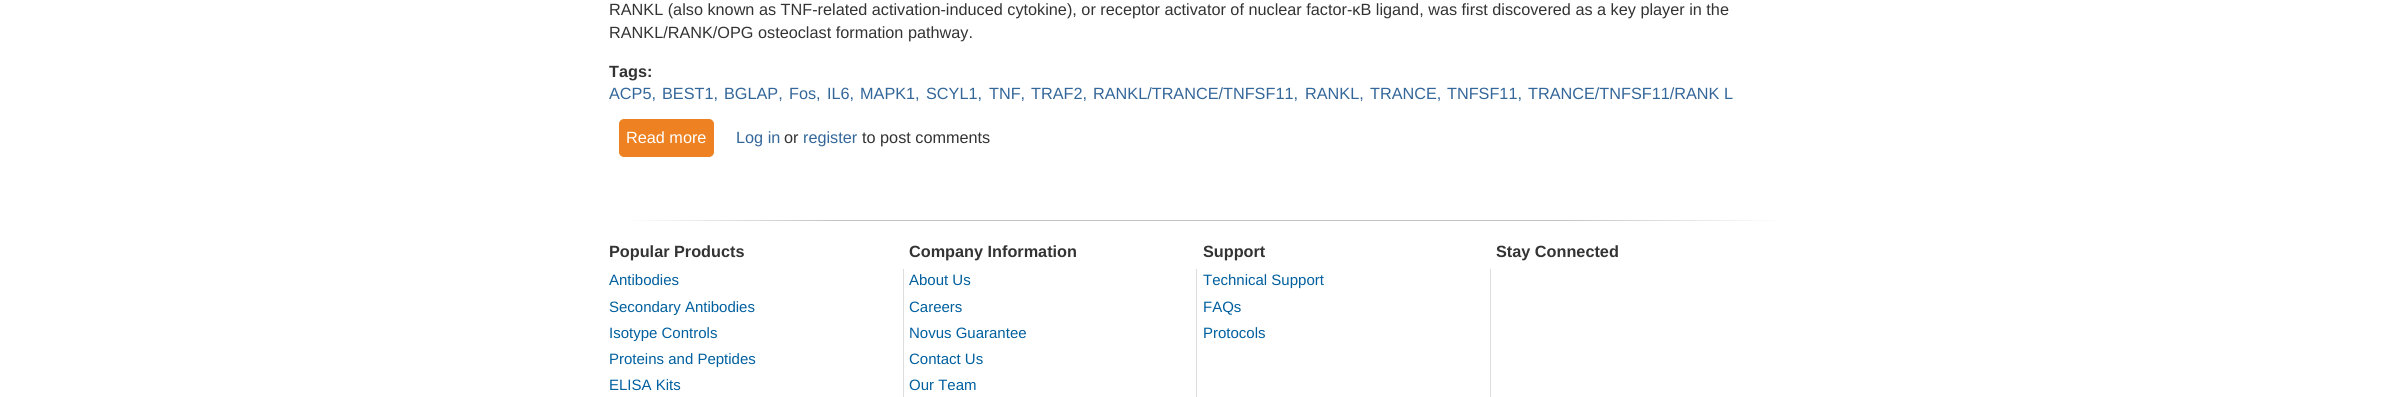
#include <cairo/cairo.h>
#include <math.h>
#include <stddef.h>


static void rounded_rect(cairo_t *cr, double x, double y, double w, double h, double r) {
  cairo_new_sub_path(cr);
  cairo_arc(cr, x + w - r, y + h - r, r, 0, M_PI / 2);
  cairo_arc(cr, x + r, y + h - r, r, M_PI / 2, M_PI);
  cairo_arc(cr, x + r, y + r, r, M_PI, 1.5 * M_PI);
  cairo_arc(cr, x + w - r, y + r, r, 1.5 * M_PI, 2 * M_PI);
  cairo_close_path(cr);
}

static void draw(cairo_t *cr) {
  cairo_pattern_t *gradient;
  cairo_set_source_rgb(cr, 1, 1, 1);
  cairo_paint(cr);
  cairo_set_source_rgb(cr, 238 / 255.0, 130 / 255.0, 34 / 255.0);
  rounded_rect(cr, 618.5, 118.5, 96, 39, 5.5);
  cairo_fill_preserve(cr);
  cairo_set_source_rgb(cr, 1, 1, 1);
  cairo_set_line_width(cr, 1);
  cairo_stroke(cr);
  gradient = cairo_pattern_create_linear(609, 221, 1784, 221);
  cairo_pattern_add_color_stop_rgba(gradient, 0, 1, 1, 1, 1);
  cairo_pattern_add_color_stop_rgba(gradient, 0.01, 1, 1, 1, 1);
  cairo_pattern_add_color_stop_rgba(gradient, 0.2, 193 / 255.0, 193 / 255.0, 193 / 255.0, 1);
  cairo_pattern_add_color_stop_rgba(gradient, 0.8, 193 / 255.0, 193 / 255.0, 193 / 255.0, 1);
  cairo_pattern_add_color_stop_rgba(gradient, 1, 1, 1, 1, 1);
  cairo_set_source(cr, gradient);
  cairo_pattern_destroy(gradient);
  cairo_rectangle(cr, 630, 220, 1145, 1);
  cairo_fill(cr);
  cairo_set_source_rgb(cr, 221 / 255.0, 221 / 255.0, 221 / 255.0);
  cairo_rectangle(cr, 903, 269, 1, 128);
  cairo_fill(cr);
  cairo_rectangle(cr, 1196, 269, 1, 128);
  cairo_fill(cr);
  cairo_rectangle(cr, 1490, 269, 1, 128);
  cairo_fill(cr);
  cairo_select_font_face(cr, "Liberation Sans", CAIRO_FONT_SLANT_NORMAL, CAIRO_FONT_WEIGHT_NORMAL);
  cairo_set_font_size(cr, 16.25);
  cairo_set_source_rgb(cr, 51 / 255.0, 51 / 255.0, 51 / 255.0);
  cairo_move_to(cr, 609, 15);
  cairo_show_text(cr, "RANKL (also known as TNF-related activation-induced cytokine), or receptor activator of nuclear factor-κB ligand, was first discovered as a key player in the");
  cairo_move_to(cr, 609, 38);
  cairo_show_text(cr, "RANKL/RANK/OPG osteoclast formation pathway.");
  cairo_select_font_face(cr, "Liberation Sans", CAIRO_FONT_SLANT_NORMAL, CAIRO_FONT_WEIGHT_BOLD);
  cairo_move_to(cr, 609, 77);
  cairo_show_text(cr, "Tags:");
  cairo_select_font_face(cr, "Liberation Sans", CAIRO_FONT_SLANT_NORMAL, CAIRO_FONT_WEIGHT_NORMAL);
  cairo_set_source_rgb(cr, 51 / 255.0, 102 / 255.0, 153 / 255.0);
  cairo_move_to(cr, 609, 99);
  cairo_show_text(cr, "ACP5,");
  cairo_move_to(cr, 662, 99);
  cairo_show_text(cr, "BEST1,");
  cairo_move_to(cr, 724, 99);
  cairo_show_text(cr, "BGLAP,");
  cairo_move_to(cr, 789, 99);
  cairo_show_text(cr, "Fos,");
  cairo_move_to(cr, 827, 99);
  cairo_show_text(cr, "IL6,");
  cairo_move_to(cr, 860, 99);
  cairo_show_text(cr, "MAPK1,");
  cairo_move_to(cr, 926, 99);
  cairo_show_text(cr, "SCYL1,");
  cairo_move_to(cr, 989, 99);
  cairo_show_text(cr, "TNF,");
  cairo_move_to(cr, 1031, 99);
  cairo_show_text(cr, "TRAF2,");
  cairo_move_to(cr, 1093, 99);
  cairo_show_text(cr, "RANKL/TRANCE/TNFSF11,");
  cairo_move_to(cr, 1305, 99);
  cairo_show_text(cr, "RANKL,");
  cairo_move_to(cr, 1370, 99);
  cairo_show_text(cr, "TRANCE,");
  cairo_move_to(cr, 1447, 99);
  cairo_show_text(cr, "TNFSF11,");
  cairo_move_to(cr, 1528, 99);
  cairo_show_text(cr, "TRANCE/TNFSF11/RANK L");
  cairo_set_source_rgb(cr, 1, 1, 1);
  cairo_move_to(cr, 626, 143);
  cairo_show_text(cr, "Read more");
  cairo_set_source_rgb(cr, 51 / 255.0, 102 / 255.0, 153 / 255.0);
  cairo_move_to(cr, 736, 143);
  cairo_show_text(cr, "Log in");
  cairo_set_source_rgb(cr, 51 / 255.0, 51 / 255.0, 51 / 255.0);
  cairo_move_to(cr, 784, 143);
  cairo_show_text(cr, "or");
  cairo_set_source_rgb(cr, 51 / 255.0, 102 / 255.0, 153 / 255.0);
  cairo_move_to(cr, 803, 143);
  cairo_show_text(cr, "register");
  cairo_set_source_rgb(cr, 51 / 255.0, 51 / 255.0, 51 / 255.0);
  cairo_move_to(cr, 862, 143);
  cairo_show_text(cr, "to post comments");
  cairo_select_font_face(cr, "Liberation Sans", CAIRO_FONT_SLANT_NORMAL, CAIRO_FONT_WEIGHT_BOLD);
  cairo_move_to(cr, 609, 257);
  cairo_show_text(cr, "Popular Products");
  cairo_move_to(cr, 909, 257);
  cairo_show_text(cr, "Company Information");
  cairo_move_to(cr, 1203, 257);
  cairo_show_text(cr, "Support");
  cairo_move_to(cr, 1496, 257);
  cairo_show_text(cr, "Stay Connected");
  cairo_select_font_face(cr, "Liberation Sans", CAIRO_FONT_SLANT_NORMAL, CAIRO_FONT_WEIGHT_NORMAL);
  cairo_set_font_size(cr, 15);
  cairo_set_source_rgb(cr, 0, 95 / 255.0, 158 / 255.0);
  cairo_move_to(cr, 609, 285);
  cairo_show_text(cr, "Antibodies");
  cairo_move_to(cr, 609, 312);
  cairo_show_text(cr, "Secondary Antibodies");
  cairo_move_to(cr, 609, 338);
  cairo_show_text(cr, "Isotype Controls");
  cairo_move_to(cr, 609, 364);
  cairo_show_text(cr, "Proteins and Peptides");
  cairo_move_to(cr, 609, 390);
  cairo_show_text(cr, "ELISA Kits");
  cairo_move_to(cr, 909, 285);
  cairo_show_text(cr, "About Us");
  cairo_move_to(cr, 909, 312);
  cairo_show_text(cr, "Careers");
  cairo_move_to(cr, 909, 338);
  cairo_show_text(cr, "Novus Guarantee");
  cairo_move_to(cr, 909, 364);
  cairo_show_text(cr, "Contact Us");
  cairo_move_to(cr, 909, 390);
  cairo_show_text(cr, "Our Team");
  cairo_move_to(cr, 1203, 285);
  cairo_show_text(cr, "Technical Support");
  cairo_move_to(cr, 1203, 312);
  cairo_show_text(cr, "FAQs");
  cairo_move_to(cr, 1203, 338);
  cairo_show_text(cr, "Protocols");
}

int main(void) {
  cairo_surface_t *surface = cairo_image_surface_create(CAIRO_FORMAT_RGB24, 2392, 397);
  cairo_t *cr = cairo_create(surface);
  cairo_font_options_t *options = cairo_font_options_create();
  cairo_font_options_set_hint_metrics(options, CAIRO_HINT_METRICS_OFF);
  cairo_font_options_set_hint_style(options, CAIRO_HINT_STYLE_NONE);
  cairo_set_font_options(cr, options);
  cairo_set_miter_limit(cr, 4);
  draw(cr);
  cairo_surface_write_to_png(surface, "out.png");
  cairo_font_options_destroy(options);
  cairo_destroy(cr);
  cairo_surface_destroy(surface);
  return 0;
}
